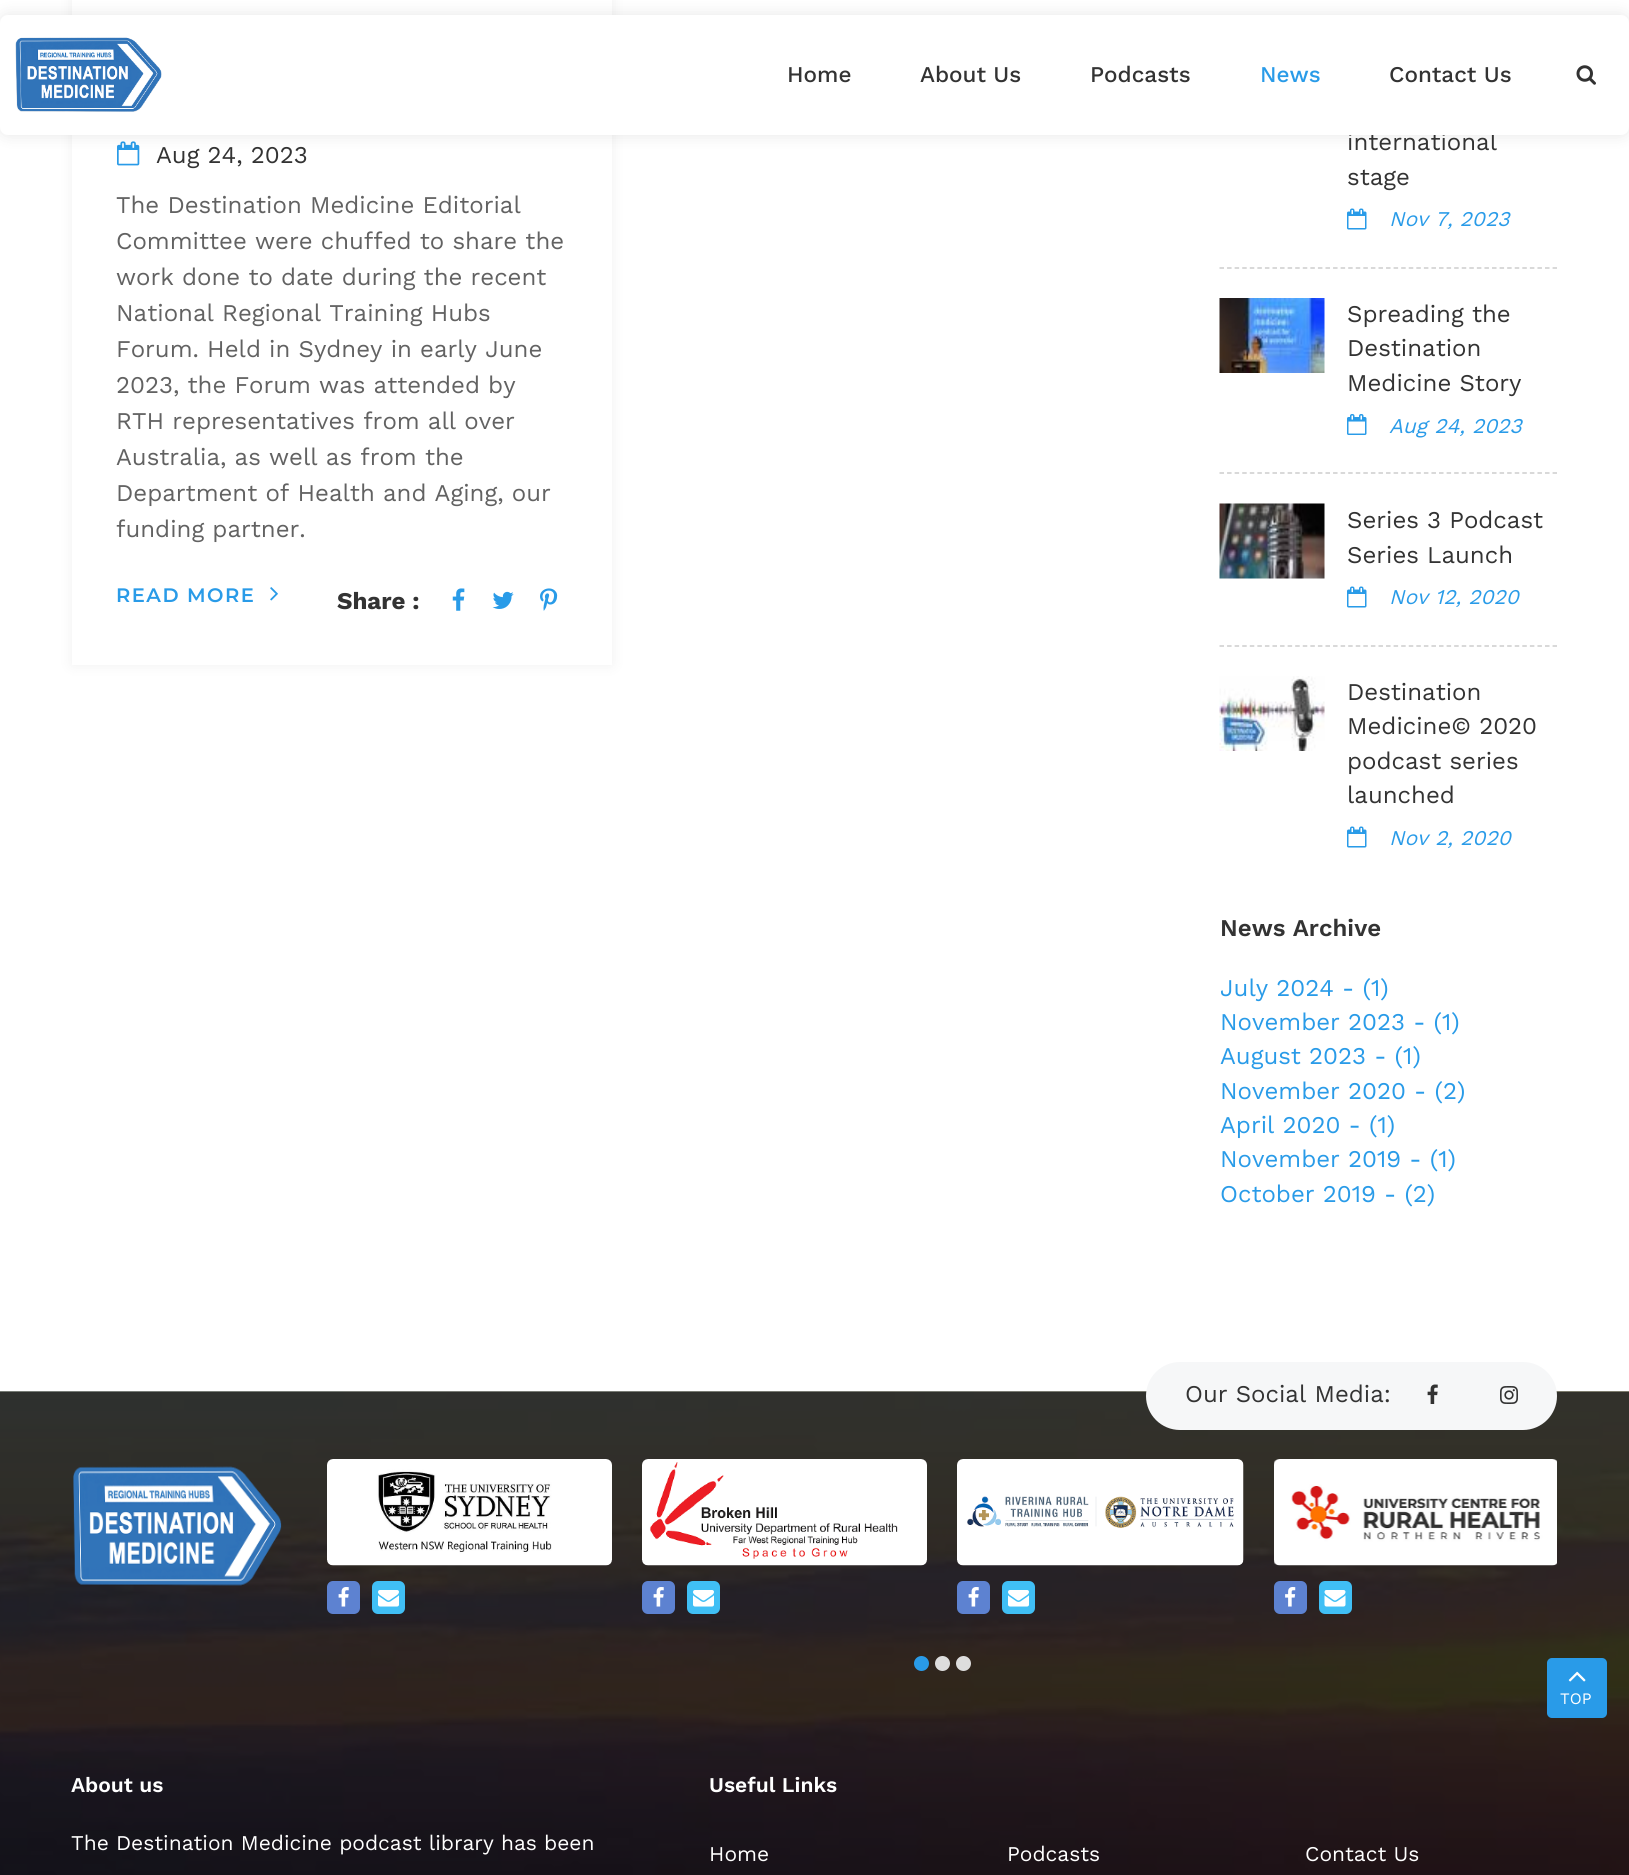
#include <cairo/cairo.h>
#include <math.h>
#include <stddef.h>


static void draw_spaced(cairo_t *cr, double x, double y, const char *s, double letter, double word) {
  cairo_move_to(cr, x, y);
  while (*s) {
    char ch[5] = {0};
    int n = 0;
    do ch[n++] = *s++; while ((*s & 0xC0) == 0x80);
    cairo_show_text(cr, ch);
    cairo_rel_move_to(cr, letter + word * (*ch == ' '), 0);
  }
}

static void rounded_rect(cairo_t *cr, double x, double y, double w, double h, double r) {
  cairo_new_sub_path(cr);
  cairo_arc(cr, x + w - r, y + h - r, r, 0, M_PI / 2);
  cairo_arc(cr, x + r, y + h - r, r, M_PI / 2, M_PI);
  cairo_arc(cr, x + r, y + r, r, M_PI, 1.5 * M_PI);
  cairo_arc(cr, x + w - r, y + r, r, 1.5 * M_PI, 2 * M_PI);
  cairo_close_path(cr);
}

static void draw_shadow(cairo_t *cr, double x, double y, double w, double h, double r, double blur, double alpha) {
  cairo_push_group_with_content(cr, CAIRO_CONTENT_ALPHA);
  cairo_set_operator(cr, CAIRO_OPERATOR_SOURCE);
  for (int i = 15; i >= -15 && fmin(w, h) + blur * i / 3 > 0; i -= 2) {
    double e = blur * i / 6;
    cairo_set_source_rgba(cr, 0, 0, 0, alpha * erfc((i - 1) / 8.5) / 2);
    rounded_rect(cr, x - e, y - e, w + 2 * e, h + 2 * e, fmax(0, fmin(r + e + blur * .6, fmin(w, h) / 2 + e)));
    cairo_fill(cr);
  }
  cairo_pattern_t *soft = cairo_pop_group(cr);
  cairo_mask(cr, soft);
  cairo_pattern_destroy(soft);
}

static void draw_image(cairo_t *cr, const char *path, double x, double y, double w, double h) {
  cairo_surface_t *image = cairo_image_surface_create_from_png(path);
  cairo_save(cr);
  cairo_set_source_surface(cr, image, x, y);
  cairo_rectangle(cr, x, y, w, h);
  cairo_fill(cr);
  cairo_restore(cr);
  cairo_surface_destroy(image);
}

static void draw(cairo_t *cr) {
  cairo_set_source_rgb(cr, 1, 1, 1);
  cairo_paint(cr);
  cairo_set_source_rgb(cr, 0, 0, 0);
  draw_shadow(cr, 72, -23, 540, 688, 0, 7.5, 0.06);
  cairo_set_source_rgb(cr, 1, 1, 1);
  cairo_rectangle(cr, 72, 0, 540, 665);
  cairo_fill(cr);
  draw_image(cr, "images/3.png", 117, 141, 23, 25);
  cairo_set_source_rgb(cr, 0, 0, 0);
  draw_shadow(cr, 0, 15, 1629, 120, 8, 7.5, 0.1);
  draw_image(cr, "images/4.png", 270, 587, 8, 14);
  draw_image(cr, "images/5.png", 452, 588, 13, 23);
  draw_image(cr, "images/6.png", 492, 591, 22, 18);
  draw_image(cr, "images/7.png", 540, 588, 18, 23);
  cairo_new_path(cr);
  cairo_move_to(cr, 1219.5, 268);
  cairo_line_to(cr, 1557, 268);
  cairo_set_source_rgb(cr, 204 / 255.0, 204 / 255.0, 204 / 255.0);
  cairo_set_line_width(cr, 1.5);
  cairo_set_dash(cr, (double[]){4.5, 3.07}, 2, 0);
  cairo_stroke(cr);
  draw_image(cr, "images/8.png", 1347, 208, 20, 22);
  cairo_new_path(cr);
  cairo_move_to(cr, 1219.5, 473);
  cairo_line_to(cr, 1557, 473);
  cairo_stroke(cr);
  draw_image(cr, "images/9.png", 1219, 298, 106, 75);
  draw_image(cr, "images/10.png", 1347, 414, 20, 21);
  cairo_new_path(cr);
  cairo_move_to(cr, 1219.5, 646);
  cairo_line_to(cr, 1557, 646);
  cairo_stroke(cr);
  draw_image(cr, "images/11.png", 1219, 503, 106, 76);
  draw_image(cr, "images/8.png", 1347, 586, 20, 22);
  draw_image(cr, "images/12.png", 1219, 676, 106, 75);
  draw_image(cr, "images/8.png", 1347, 826, 20, 22);
  draw_image(cr, "images/24.png", 0, 1391, 1629, 484);
  cairo_set_source_rgb(cr, 246 / 255.0, 247 / 255.0, 248 / 255.0);
  rounded_rect(cr, 1146, 1362, 411, 68, 34);
  cairo_fill(cr);
  draw_image(cr, "images/13.png", 1427, 1384, 11, 20);
  draw_image(cr, "images/14.png", 1500, 1386, 18, 18);
  draw_image(cr, "images/15.png", 327, 1459, 285, 107);
  cairo_set_source_rgb(cr, 93 / 255.0, 130 / 255.0, 209 / 255.0);
  rounded_rect(cr, 327, 1581, 33, 33, 6);
  cairo_fill(cr);
  draw_image(cr, "images/16.png", 338, 1587, 11, 20);
  cairo_set_source_rgb(cr, 64 / 255.0, 191 / 255.0, 245 / 255.0);
  rounded_rect(cr, 372, 1581, 33, 33, 6);
  cairo_fill(cr);
  draw_image(cr, "images/17.png", 378, 1590, 21, 17);
  draw_image(cr, "images/18.png", 642, 1459, 285, 107);
  cairo_set_source_rgb(cr, 93 / 255.0, 130 / 255.0, 209 / 255.0);
  rounded_rect(cr, 642, 1581, 33, 33, 6);
  cairo_fill(cr);
  draw_image(cr, "images/16.png", 653, 1587, 11, 20);
  cairo_set_source_rgb(cr, 64 / 255.0, 191 / 255.0, 245 / 255.0);
  rounded_rect(cr, 687, 1581, 33, 33, 6);
  cairo_fill(cr);
  draw_image(cr, "images/17.png", 693, 1590, 21, 17);
  draw_image(cr, "images/19.png", 957, 1459, 287, 107);
  cairo_set_source_rgb(cr, 93 / 255.0, 130 / 255.0, 209 / 255.0);
  rounded_rect(cr, 957, 1581, 33, 33, 6);
  cairo_fill(cr);
  draw_image(cr, "images/16.png", 968, 1587, 11, 20);
  cairo_set_source_rgb(cr, 64 / 255.0, 191 / 255.0, 245 / 255.0);
  rounded_rect(cr, 1002, 1581, 33, 33, 6);
  cairo_fill(cr);
  draw_image(cr, "images/17.png", 1008, 1590, 21, 17);
  draw_image(cr, "images/20.png", 1274, 1459, 283, 107);
  cairo_set_source_rgb(cr, 93 / 255.0, 130 / 255.0, 209 / 255.0);
  rounded_rect(cr, 1274, 1581, 33, 33, 6);
  cairo_fill(cr);
  draw_image(cr, "images/21.png", 1285, 1587, 11, 20);
  cairo_set_source_rgb(cr, 64 / 255.0, 191 / 255.0, 245 / 255.0);
  rounded_rect(cr, 1319, 1581, 33, 33, 6);
  cairo_fill(cr);
  draw_image(cr, "images/22.png", 1324, 1590, 22, 17);
  cairo_set_source_rgb(cr, 41 / 255.0, 155 / 255.0, 232 / 255.0);
  cairo_arc(cr, 921.5, 1663.5, 7.5, 0, 2 * M_PI);
  cairo_fill(cr);
  cairo_set_source_rgb(cr, 221 / 255.0, 221 / 255.0, 221 / 255.0);
  cairo_arc(cr, 942.5, 1663.5, 7.5, 0, 2 * M_PI);
  cairo_fill(cr);
  cairo_arc(cr, 963.5, 1663.5, 7.5, 0, 2 * M_PI);
  cairo_fill(cr);
  draw_image(cr, "images/23.png", 73, 1466, 209, 120);
  cairo_set_source_rgb(cr, 41 / 255.0, 155 / 255.0, 232 / 255.0);
  rounded_rect(cr, 1547, 1658, 60, 60, 5);
  cairo_fill(cr);
  draw_image(cr, "images/25.png", 1568, 1671, 18, 11);
  cairo_select_font_face(cr, "Work Sans", CAIRO_FONT_SLANT_NORMAL, CAIRO_FONT_WEIGHT_NORMAL);
  cairo_set_font_size(cr, 24);
  cairo_set_source_rgb(cr, 51 / 255.0, 51 / 255.0, 51 / 255.0);
  cairo_move_to(cr, 156, 163);
  cairo_show_text(cr, "Aug 24, 2023");
  cairo_set_source_rgb(cr, 98 / 255.0, 98 / 255.0, 98 / 255.0);
  cairo_move_to(cr, 116, 213);
  cairo_show_text(cr, "The Destination Medicine Editorial");
  cairo_move_to(cr, 116, 249);
  cairo_show_text(cr, "Committee were chuffed to share the");
  cairo_move_to(cr, 116, 285);
  cairo_show_text(cr, "work done to date during the recent");
  cairo_move_to(cr, 116, 321);
  cairo_show_text(cr, "National Regional Training Hubs");
  cairo_move_to(cr, 116, 357);
  cairo_show_text(cr, "Forum. Held in Sydney in early June");
  cairo_move_to(cr, 116, 393);
  cairo_show_text(cr, "2023, the Forum was attended by");
  cairo_move_to(cr, 116, 429);
  cairo_show_text(cr, "RTH representatives from all over");
  cairo_move_to(cr, 116, 465);
  cairo_show_text(cr, "Australia, as well as from the");
  cairo_move_to(cr, 116, 501);
  cairo_show_text(cr, "Department of Health and Aging, our");
  cairo_move_to(cr, 116, 537);
  cairo_show_text(cr, "funding partner.");
  cairo_select_font_face(cr, "Montserrat SemiBold", CAIRO_FONT_SLANT_NORMAL, CAIRO_FONT_WEIGHT_NORMAL);
  cairo_set_font_size(cr, 19.5);
  cairo_set_source_rgb(cr, 41 / 255.0, 155 / 255.0, 232 / 255.0);
  draw_spaced(cr, 116, 602, "READ MORE", 1.5, 0);
  cairo_select_font_face(cr, "Work Sans", CAIRO_FONT_SLANT_NORMAL, CAIRO_FONT_WEIGHT_BOLD);
  cairo_set_font_size(cr, 24);
  cairo_set_source_rgb(cr, 51 / 255.0, 51 / 255.0, 51 / 255.0);
  cairo_move_to(cr, 337, 609);
  cairo_show_text(cr, "Share :");
  cairo_select_font_face(cr, "Work Sans", CAIRO_FONT_SLANT_NORMAL, CAIRO_FONT_WEIGHT_NORMAL);
  cairo_move_to(cr, 1347, 150);
  cairo_show_text(cr, "international");
  cairo_set_source_rgb(cr, 1, 1, 1);
  rounded_rect(cr, 0, 15, 1629, 120, 8);
  cairo_fill(cr);
  draw_image(cr, "images/2.png", 1576, 65, 20, 20);
  cairo_select_font_face(cr, "Work Sans Medium", CAIRO_FONT_SLANT_NORMAL, CAIRO_FONT_WEIGHT_NORMAL);
  cairo_set_font_size(cr, 22.5);
  cairo_set_source_rgb(cr, 51 / 255.0, 51 / 255.0, 51 / 255.0);
  cairo_move_to(cr, 1389, 82);
  cairo_show_text(cr, "Contact Us");
  cairo_set_source_rgb(cr, 41 / 255.0, 155 / 255.0, 232 / 255.0);
  cairo_move_to(cr, 1260, 82);
  cairo_show_text(cr, "News");
  cairo_set_source_rgb(cr, 51 / 255.0, 51 / 255.0, 51 / 255.0);
  cairo_move_to(cr, 1090, 82);
  cairo_show_text(cr, "Podcasts");
  cairo_move_to(cr, 920, 82);
  cairo_show_text(cr, "About Us");
  cairo_move_to(cr, 787, 82);
  cairo_show_text(cr, "Home");
  draw_image(cr, "images/1.png", 15, 37, 147, 75);
  cairo_select_font_face(cr, "Work Sans", CAIRO_FONT_SLANT_NORMAL, CAIRO_FONT_WEIGHT_NORMAL);
  cairo_set_font_size(cr, 24);
  cairo_move_to(cr, 1347, 185);
  cairo_show_text(cr, "stage");
  cairo_select_font_face(cr, "Work Sans", CAIRO_FONT_SLANT_ITALIC, CAIRO_FONT_WEIGHT_NORMAL);
  cairo_set_font_size(cr, 21);
  cairo_set_source_rgb(cr, 41 / 255.0, 155 / 255.0, 232 / 255.0);
  cairo_move_to(cr, 1389, 226);
  cairo_show_text(cr, "Nov 7, 2023");
  cairo_select_font_face(cr, "Work Sans", CAIRO_FONT_SLANT_NORMAL, CAIRO_FONT_WEIGHT_NORMAL);
  cairo_set_font_size(cr, 24);
  cairo_set_source_rgb(cr, 51 / 255.0, 51 / 255.0, 51 / 255.0);
  cairo_move_to(cr, 1347, 322);
  cairo_show_text(cr, "Spreading the");
  cairo_move_to(cr, 1347, 356);
  cairo_show_text(cr, "Destination");
  cairo_move_to(cr, 1347, 391);
  cairo_show_text(cr, "Medicine Story");
  cairo_select_font_face(cr, "Work Sans", CAIRO_FONT_SLANT_ITALIC, CAIRO_FONT_WEIGHT_NORMAL);
  cairo_set_font_size(cr, 21);
  cairo_set_source_rgb(cr, 41 / 255.0, 155 / 255.0, 232 / 255.0);
  cairo_move_to(cr, 1389, 433);
  cairo_show_text(cr, "Aug 24, 2023");
  cairo_select_font_face(cr, "Work Sans", CAIRO_FONT_SLANT_NORMAL, CAIRO_FONT_WEIGHT_NORMAL);
  cairo_set_font_size(cr, 24);
  cairo_set_source_rgb(cr, 51 / 255.0, 51 / 255.0, 51 / 255.0);
  cairo_move_to(cr, 1347, 528);
  cairo_show_text(cr, "Series 3 Podcast");
  cairo_move_to(cr, 1347, 563);
  cairo_show_text(cr, "Series Launch");
  cairo_select_font_face(cr, "Work Sans", CAIRO_FONT_SLANT_ITALIC, CAIRO_FONT_WEIGHT_NORMAL);
  cairo_set_font_size(cr, 21);
  cairo_set_source_rgb(cr, 41 / 255.0, 155 / 255.0, 232 / 255.0);
  cairo_move_to(cr, 1389, 604);
  cairo_show_text(cr, "Nov 12, 2020");
  cairo_select_font_face(cr, "Work Sans", CAIRO_FONT_SLANT_NORMAL, CAIRO_FONT_WEIGHT_NORMAL);
  cairo_set_font_size(cr, 24);
  cairo_set_source_rgb(cr, 51 / 255.0, 51 / 255.0, 51 / 255.0);
  cairo_move_to(cr, 1347, 700);
  cairo_show_text(cr, "Destination");
  cairo_move_to(cr, 1347, 734);
  cairo_show_text(cr, "Medicine© 2020");
  cairo_move_to(cr, 1347, 769);
  cairo_show_text(cr, "podcast series");
  cairo_move_to(cr, 1347, 803);
  cairo_show_text(cr, "launched");
  cairo_select_font_face(cr, "Work Sans", CAIRO_FONT_SLANT_ITALIC, CAIRO_FONT_WEIGHT_NORMAL);
  cairo_set_font_size(cr, 21);
  cairo_set_source_rgb(cr, 41 / 255.0, 155 / 255.0, 232 / 255.0);
  cairo_move_to(cr, 1389, 845);
  cairo_show_text(cr, "Nov 2, 2020");
  cairo_select_font_face(cr, "Work Sans SemiBold", CAIRO_FONT_SLANT_NORMAL, CAIRO_FONT_WEIGHT_NORMAL);
  cairo_set_font_size(cr, 24);
  cairo_set_source_rgb(cr, 51 / 255.0, 51 / 255.0, 51 / 255.0);
  cairo_move_to(cr, 1220, 936);
  cairo_show_text(cr, "News Archive");
  cairo_select_font_face(cr, "Work Sans", CAIRO_FONT_SLANT_NORMAL, CAIRO_FONT_WEIGHT_NORMAL);
  cairo_set_source_rgb(cr, 41 / 255.0, 155 / 255.0, 232 / 255.0);
  cairo_move_to(cr, 1220, 996);
  cairo_show_text(cr, "July 2024 - (1)");
  cairo_move_to(cr, 1220, 1030);
  cairo_show_text(cr, "November 2023 - (1)");
  cairo_move_to(cr, 1220, 1064);
  cairo_show_text(cr, "August 2023 - (1)");
  cairo_move_to(cr, 1220, 1099);
  cairo_show_text(cr, "November 2020 - (2)");
  cairo_move_to(cr, 1220, 1133);
  cairo_show_text(cr, "April 2020 - (1)");
  cairo_move_to(cr, 1220, 1167);
  cairo_show_text(cr, "November 2019 - (1)");
  cairo_move_to(cr, 1220, 1202);
  cairo_show_text(cr, "October 2019 - (2)");
  cairo_set_source_rgb(cr, 51 / 255.0, 51 / 255.0, 51 / 255.0);
  cairo_move_to(cr, 1185, 1402);
  cairo_show_text(cr, "Our Social Media:");
  cairo_select_font_face(cr, "Work Sans SemiBold", CAIRO_FONT_SLANT_NORMAL, CAIRO_FONT_WEIGHT_NORMAL);
  cairo_set_font_size(cr, 21);
  cairo_set_source_rgb(cr, 1, 1, 1);
  cairo_move_to(cr, 71, 1792);
  cairo_show_text(cr, "About us");
  cairo_select_font_face(cr, "Work Sans", CAIRO_FONT_SLANT_NORMAL, CAIRO_FONT_WEIGHT_NORMAL);
  cairo_move_to(cr, 71, 1850);
  cairo_show_text(cr, "The Destination Medicine podcast library has been");
  cairo_select_font_face(cr, "Work Sans SemiBold", CAIRO_FONT_SLANT_NORMAL, CAIRO_FONT_WEIGHT_NORMAL);
  cairo_move_to(cr, 709, 1792);
  cairo_show_text(cr, "Useful Links");
  cairo_select_font_face(cr, "Work Sans", CAIRO_FONT_SLANT_NORMAL, CAIRO_FONT_WEIGHT_NORMAL);
  cairo_move_to(cr, 709, 1861);
  cairo_show_text(cr, "Home");
  cairo_move_to(cr, 1007, 1861);
  cairo_show_text(cr, "Podcasts");
  cairo_move_to(cr, 1305, 1861);
  cairo_show_text(cr, "Contact Us");
  cairo_set_font_size(cr, 16);
  cairo_move_to(cr, 1560, 1704);
  cairo_show_text(cr, "TOP");
}

int main(void) {
  cairo_surface_t *surface = cairo_image_surface_create(CAIRO_FORMAT_RGB24, 1629, 1875);
  cairo_t *cr = cairo_create(surface);
  cairo_font_options_t *options = cairo_font_options_create();
  cairo_font_options_set_hint_metrics(options, CAIRO_HINT_METRICS_OFF);
  cairo_font_options_set_hint_style(options, CAIRO_HINT_STYLE_NONE);
  cairo_set_font_options(cr, options);
  cairo_set_miter_limit(cr, 4);
  draw(cr);
  cairo_surface_write_to_png(surface, "out.png");
  cairo_font_options_destroy(options);
  cairo_destroy(cr);
  cairo_surface_destroy(surface);
  return 0;
}
